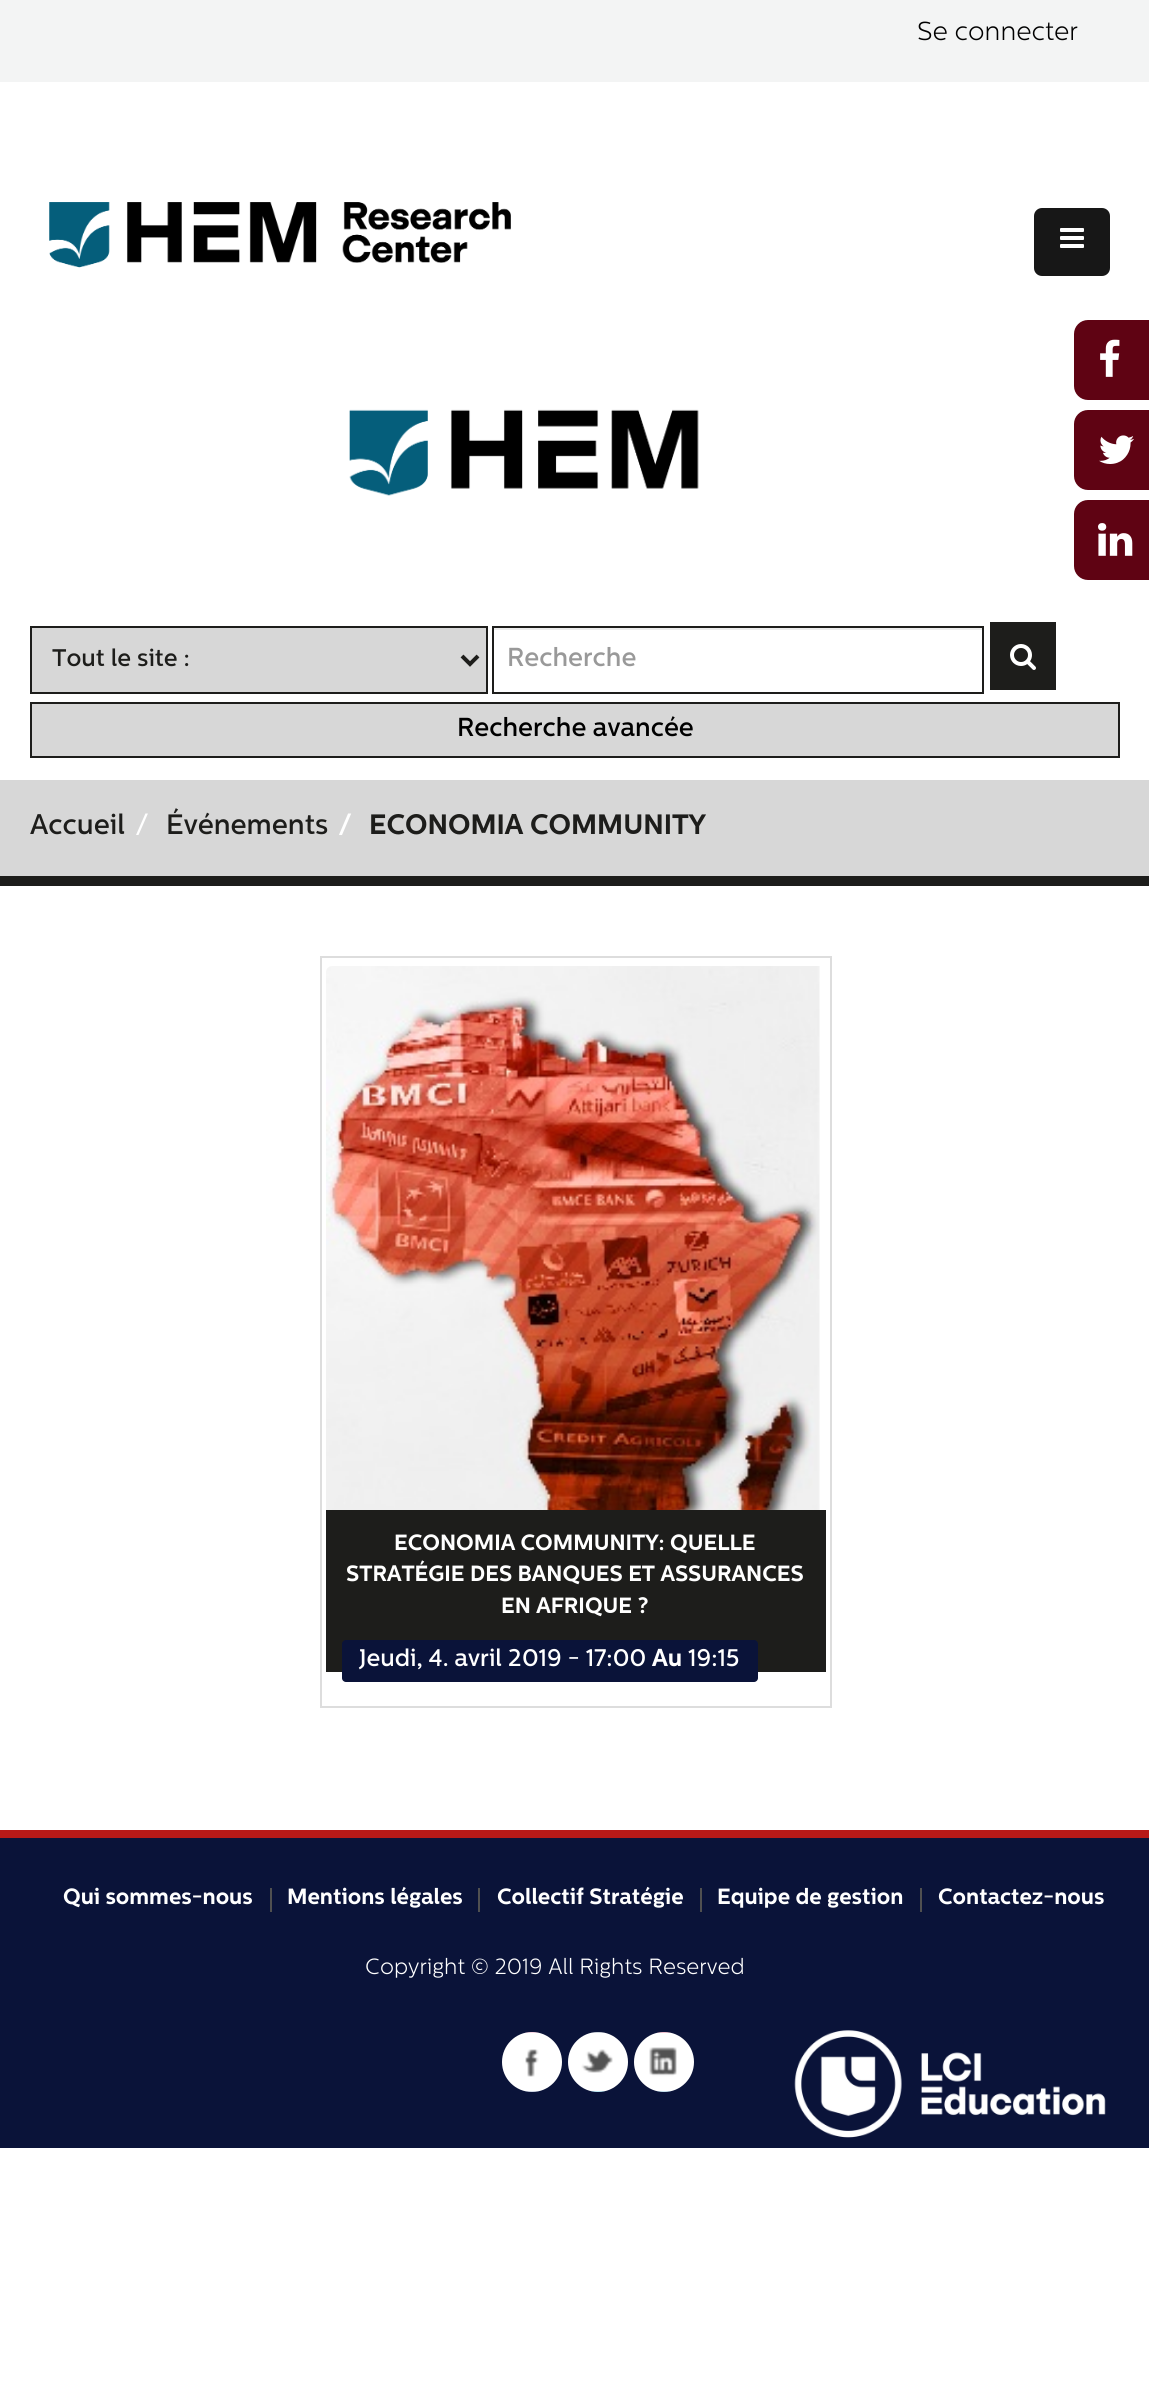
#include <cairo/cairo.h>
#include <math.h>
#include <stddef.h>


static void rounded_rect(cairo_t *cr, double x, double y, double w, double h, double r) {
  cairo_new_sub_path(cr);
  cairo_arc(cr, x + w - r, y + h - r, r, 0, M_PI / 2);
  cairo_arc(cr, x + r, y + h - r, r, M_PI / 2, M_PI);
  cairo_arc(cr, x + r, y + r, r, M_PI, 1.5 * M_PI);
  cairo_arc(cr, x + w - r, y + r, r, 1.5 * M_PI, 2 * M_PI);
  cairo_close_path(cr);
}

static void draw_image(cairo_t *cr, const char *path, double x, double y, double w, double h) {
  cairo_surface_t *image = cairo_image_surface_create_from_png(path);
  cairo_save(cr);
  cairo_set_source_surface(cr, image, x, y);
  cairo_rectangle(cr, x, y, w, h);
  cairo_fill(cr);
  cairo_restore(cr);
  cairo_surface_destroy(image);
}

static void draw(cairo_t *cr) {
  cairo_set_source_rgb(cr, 1, 1, 1);
  cairo_paint(cr);
  cairo_set_source_rgb(cr, 243 / 255.0, 244 / 255.0, 244 / 255.0);
  cairo_rectangle(cr, 0, 0, 1149, 82);
  cairo_fill(cr);
  cairo_set_source_rgb(cr, 23 / 255.0, 23 / 255.0, 23 / 255.0);
  rounded_rect(cr, 1034, 208, 76, 68, 8);
  cairo_fill(cr);
  draw_image(cr, "images/1.png", 1060, 228, 24, 20);
  draw_image(cr, "images/2.png", 49, 202, 462, 66);
  draw_image(cr, "images/3.png", 349, 409, 350, 87);
  cairo_set_source_rgb(cr, 29 / 255.0, 29 / 255.0, 27 / 255.0);
  cairo_rectangle(cr, 990, 622, 66, 68);
  cairo_fill(cr);
  cairo_set_source_rgb(cr, 215 / 255.0, 215 / 255.0, 215 / 255.0);
  cairo_rectangle(cr, 31, 627, 456, 66);
  cairo_fill_preserve(cr);
  cairo_set_source_rgb(cr, 29 / 255.0, 29 / 255.0, 27 / 255.0);
  cairo_stroke(cr);
  cairo_new_path(cr);
  cairo_move_to(cr, 462, 656);
  cairo_line_to(cr, 470, 664);
  cairo_line_to(cr, 478, 656);
  cairo_set_line_width(cr, 4);
  cairo_stroke(cr);
  cairo_set_source_rgb(cr, 236 / 255.0, 236 / 255.0, 236 / 255.0);
  cairo_rectangle(cr, 494, 628, 488, 2);
  cairo_fill(cr);
  cairo_rectangle(cr, 493, 627, 490, 66);
  cairo_set_source_rgb(cr, 29 / 255.0, 29 / 255.0, 27 / 255.0);
  cairo_set_line_width(cr, 2);
  cairo_stroke(cr);
  draw_image(cr, "images/4.png", 1010, 644, 26, 26);
  cairo_set_source_rgb(cr, 215 / 255.0, 215 / 255.0, 215 / 255.0);
  cairo_rectangle(cr, 31, 703, 1088, 54);
  cairo_fill_preserve(cr);
  cairo_set_source_rgb(cr, 29 / 255.0, 29 / 255.0, 27 / 255.0);
  cairo_stroke(cr);
  cairo_set_source_rgb(cr, 95 / 255.0, 3 / 255.0, 19 / 255.0);
  rounded_rect(cr, 1074, 320, 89, 80, 14);
  cairo_fill(cr);
  draw_image(cr, "images/5.png", 1100, 339, 20, 38);
  rounded_rect(cr, 1074, 410, 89, 80, 14);
  cairo_fill(cr);
  draw_image(cr, "images/6.png", 1099, 435, 35, 29);
  rounded_rect(cr, 1074, 500, 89, 80, 14);
  cairo_fill(cr);
  draw_image(cr, "images/7.png", 1098, 523, 35, 33);
  cairo_set_source_rgb(cr, 215 / 255.0, 215 / 255.0, 215 / 255.0);
  cairo_rectangle(cr, 0, 780, 1149, 96);
  cairo_fill(cr);
  cairo_set_source_rgb(cr, 29 / 255.0, 29 / 255.0, 27 / 255.0);
  cairo_rectangle(cr, 0, 876, 1149, 10);
  cairo_fill(cr);
  cairo_rectangle(cr, 321, 957, 510, 750);
  cairo_set_source_rgb(cr, 221 / 255.0, 221 / 255.0, 221 / 255.0);
  cairo_stroke(cr);
  draw_image(cr, "images/8.png", 326, 966, 494, 544);
  cairo_set_source_rgb(cr, 29 / 255.0, 29 / 255.0, 27 / 255.0);
  cairo_rectangle(cr, 326, 1510, 500, 162);
  cairo_fill(cr);
  cairo_set_source_rgb(cr, 10 / 255.0, 19 / 255.0, 57 / 255.0);
  rounded_rect(cr, 342, 1640, 416, 42, 4);
  cairo_fill(cr);
  cairo_rectangle(cr, 0, 1838, 1149, 310);
  cairo_fill(cr);
  cairo_set_source_rgb(cr, 183 / 255.0, 25 / 255.0, 24 / 255.0);
  cairo_rectangle(cr, 0, 1830, 1149, 8);
  cairo_fill(cr);
  cairo_set_source_rgb(cr, 80 / 255.0, 80 / 255.0, 80 / 255.0);
  cairo_rectangle(cr, 270, 1888, 2, 24);
  cairo_fill(cr);
  cairo_rectangle(cr, 478, 1888, 2, 24);
  cairo_fill(cr);
  cairo_rectangle(cr, 700, 1888, 2, 24);
  cairo_fill(cr);
  cairo_rectangle(cr, 920, 1888, 2, 24);
  cairo_fill(cr);
  cairo_set_source_rgb(cr, 1, 1, 1);
  cairo_arc(cr, 532, 2062, 30, 0, 2 * M_PI);
  cairo_fill(cr);
  draw_image(cr, "images/9.png", 525, 2032, 14, 60);
  cairo_arc(cr, 598, 2062, 30, 0, 2 * M_PI);
  cairo_fill(cr);
  draw_image(cr, "images/10.png", 581, 2032, 32, 60);
  cairo_arc(cr, 664, 2062, 30, 0, 2 * M_PI);
  cairo_fill(cr);
  draw_image(cr, "images/11.png", 649, 2032, 28, 60);
  draw_image(cr, "images/12.png", 794, 2030, 312, 108);
  cairo_select_font_face(cr, "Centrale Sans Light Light", CAIRO_FONT_SLANT_NORMAL, CAIRO_FONT_WEIGHT_NORMAL);
  cairo_set_font_size(cr, 26);
  cairo_set_source_rgb(cr, 0, 0, 0);
  cairo_move_to(cr, 917, 40);
  cairo_show_text(cr, "Se connecter");
  cairo_select_font_face(cr, "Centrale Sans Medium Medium", CAIRO_FONT_SLANT_NORMAL, CAIRO_FONT_WEIGHT_NORMAL);
  cairo_set_font_size(cr, 24);
  cairo_set_source_rgb(cr, 29 / 255.0, 29 / 255.0, 27 / 255.0);
  cairo_move_to(cr, 52, 666);
  cairo_show_text(cr, "Tout le site :");
  cairo_set_font_size(cr, 26);
  cairo_set_source_rgb(cr, 153 / 255.0, 153 / 255.0, 153 / 255.0);
  cairo_move_to(cr, 507, 666);
  cairo_show_text(cr, "Recherche");
  cairo_set_source_rgb(cr, 0, 0, 0);
  cairo_move_to(cr, 457, 736);
  cairo_show_text(cr, "Recherche avancée");
  cairo_set_font_size(cr, 28);
  cairo_set_source_rgb(cr, 29 / 255.0, 29 / 255.0, 27 / 255.0);
  cairo_move_to(cr, 30, 834);
  cairo_show_text(cr, "Accueil");
  cairo_set_source_rgb(cr, 1, 1, 1);
  cairo_move_to(cr, 135, 834);
  cairo_show_text(cr, "/");
  cairo_set_source_rgb(cr, 29 / 255.0, 29 / 255.0, 27 / 255.0);
  cairo_move_to(cr, 166, 834);
  cairo_show_text(cr, "Événements");
  cairo_select_font_face(cr, "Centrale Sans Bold", CAIRO_FONT_SLANT_NORMAL, CAIRO_FONT_WEIGHT_BOLD);
  cairo_set_source_rgb(cr, 1, 1, 1);
  cairo_move_to(cr, 338, 834);
  cairo_show_text(cr, "/");
  cairo_set_source_rgb(cr, 29 / 255.0, 29 / 255.0, 27 / 255.0);
  cairo_move_to(cr, 369, 834);
  cairo_show_text(cr, "ECONOMIA COMMUNITY");
  cairo_set_font_size(cr, 22);
  cairo_set_source_rgb(cr, 1, 1, 1);
  cairo_move_to(cr, 394, 1550);
  cairo_show_text(cr, "ECONOMIA COMMUNITY: QUELLE");
  cairo_move_to(cr, 346, 1581);
  cairo_show_text(cr, "STRATÉGIE DES BANQUES ET ASSURANCES");
  cairo_move_to(cr, 501, 1613);
  cairo_show_text(cr, "EN AFRIQUE ?");
  cairo_select_font_face(cr, "Centrale Sans Medium Medium", CAIRO_FONT_SLANT_NORMAL, CAIRO_FONT_WEIGHT_NORMAL);
  cairo_set_font_size(cr, 24);
  cairo_move_to(cr, 359, 1666);
  cairo_show_text(cr, "Jeudi, 4. avril 2019 - 17:00");
  cairo_select_font_face(cr, "Centrale Sans Bold", CAIRO_FONT_SLANT_NORMAL, CAIRO_FONT_WEIGHT_BOLD);
  cairo_move_to(cr, 652, 1666);
  cairo_show_text(cr, "Au");
  cairo_select_font_face(cr, "Centrale Sans Medium Medium", CAIRO_FONT_SLANT_NORMAL, CAIRO_FONT_WEIGHT_NORMAL);
  cairo_move_to(cr, 688, 1666);
  cairo_show_text(cr, "19:15");
  cairo_select_font_face(cr, "Centrale Sans Bold", CAIRO_FONT_SLANT_NORMAL, CAIRO_FONT_WEIGHT_BOLD);
  cairo_set_font_size(cr, 22);
  cairo_move_to(cr, 63, 1904);
  cairo_show_text(cr, "Qui sommes-nous");
  cairo_move_to(cr, 287, 1904);
  cairo_show_text(cr, "Mentions légales");
  cairo_move_to(cr, 497, 1904);
  cairo_show_text(cr, "Collectif Stratégie");
  cairo_move_to(cr, 717, 1904);
  cairo_show_text(cr, "Equipe de gestion");
  cairo_move_to(cr, 938, 1904);
  cairo_show_text(cr, "Contactez-nous");
  cairo_select_font_face(cr, "Centrale Sans Light Light", CAIRO_FONT_SLANT_NORMAL, CAIRO_FONT_WEIGHT_NORMAL);
  cairo_move_to(cr, 365, 1974);
  cairo_show_text(cr, "Copyright © 2019 All Rights Reserved");
}

int main(void) {
  cairo_surface_t *surface = cairo_image_surface_create(CAIRO_FORMAT_RGB24, 1149, 2385);
  cairo_t *cr = cairo_create(surface);
  cairo_font_options_t *options = cairo_font_options_create();
  cairo_font_options_set_hint_metrics(options, CAIRO_HINT_METRICS_OFF);
  cairo_font_options_set_hint_style(options, CAIRO_HINT_STYLE_NONE);
  cairo_set_font_options(cr, options);
  cairo_set_miter_limit(cr, 4);
  draw(cr);
  cairo_surface_write_to_png(surface, "out.png");
  cairo_font_options_destroy(options);
  cairo_destroy(cr);
  cairo_surface_destroy(surface);
  return 0;
}
